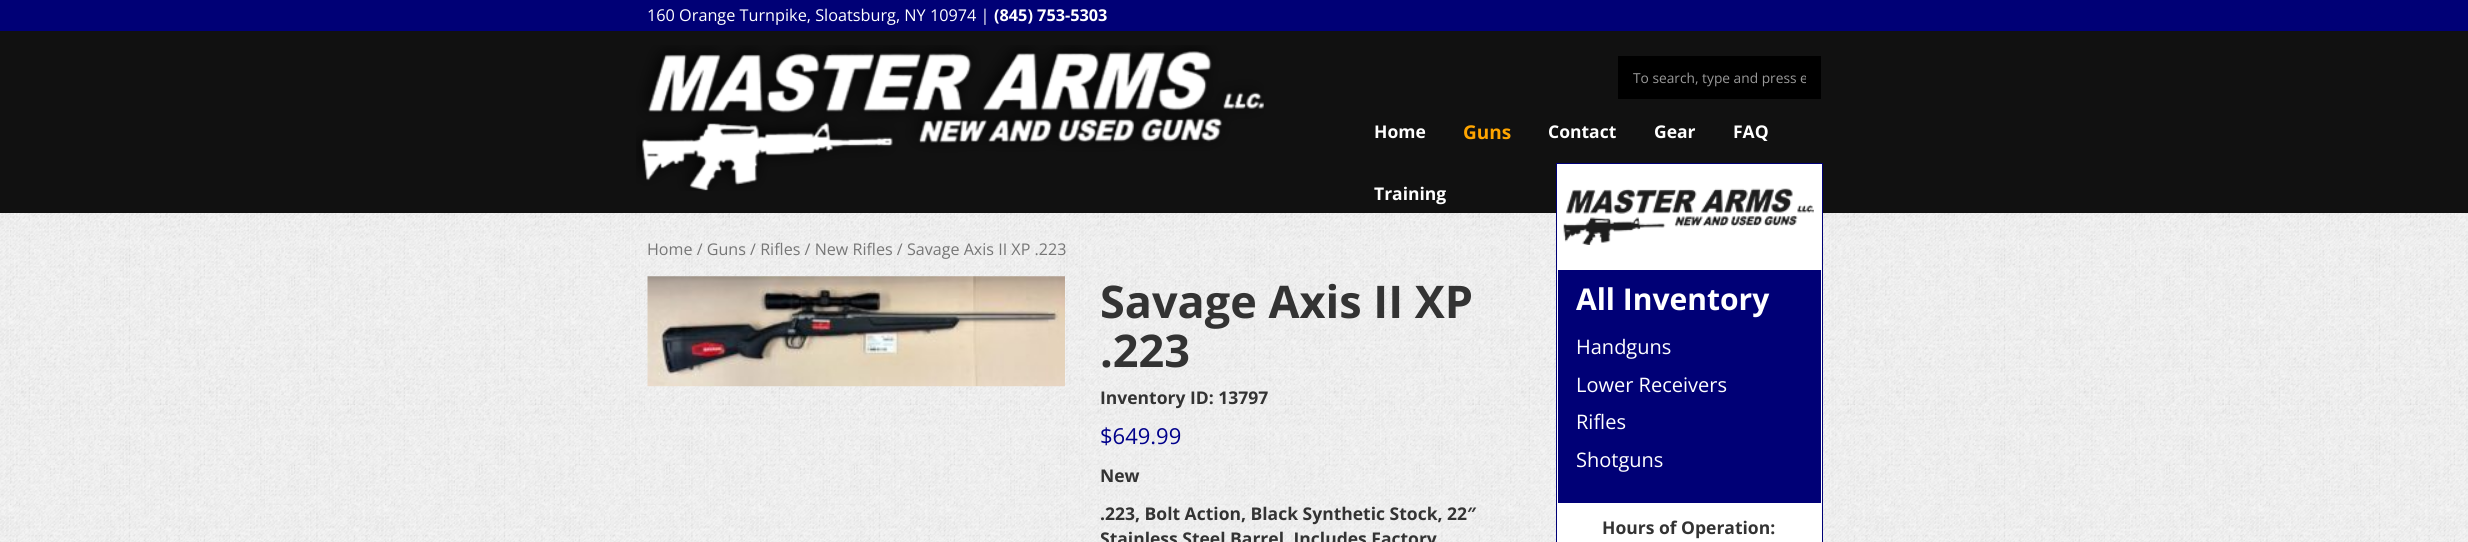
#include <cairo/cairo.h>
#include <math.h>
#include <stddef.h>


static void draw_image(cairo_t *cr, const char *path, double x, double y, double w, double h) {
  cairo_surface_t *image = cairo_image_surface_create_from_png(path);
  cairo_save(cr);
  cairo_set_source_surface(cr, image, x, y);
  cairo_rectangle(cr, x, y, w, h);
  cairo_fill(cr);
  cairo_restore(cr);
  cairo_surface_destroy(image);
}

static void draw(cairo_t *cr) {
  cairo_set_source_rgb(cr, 1, 1, 1);
  cairo_paint(cr);
  draw_image(cr, "images/1.png", 0, 213, 2468, 329);
  cairo_set_source_rgb(cr, 17 / 255.0, 17 / 255.0, 17 / 255.0);
  cairo_rectangle(cr, 0, 31, 2468, 182);
  cairo_fill(cr);
  cairo_set_source_rgb(cr, 0, 0, 118 / 255.0);
  cairo_rectangle(cr, 0, 0, 2468, 31);
  cairo_fill(cr);
  draw_image(cr, "images/2.png", 636, 45, 628, 146);
  cairo_set_source_rgb(cr, 0, 0, 0);
  cairo_rectangle(cr, 1618, 56, 203, 43);
  cairo_fill(cr);
  draw_image(cr, "images/3.png", 647, 276, 418, 111);
  cairo_set_source_rgb(cr, 1, 1, 1);
  cairo_rectangle(cr, 1556.5, 163.5, 266, 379);
  cairo_fill_preserve(cr);
  cairo_set_source_rgb(cr, 0, 0, 118 / 255.0);
  cairo_set_line_width(cr, 1);
  cairo_stroke(cr);
  draw_image(cr, "images/4.png", 1563, 188, 251, 57);
  cairo_rectangle(cr, 1558, 270, 263, 233);
  cairo_fill(cr);
  cairo_select_font_face(cr, "Open Sans", CAIRO_FONT_SLANT_NORMAL, CAIRO_FONT_WEIGHT_NORMAL);
  cairo_set_font_size(cr, 16.25);
  cairo_set_source_rgb(cr, 1, 1, 1);
  cairo_move_to(cr, 647, 21);
  cairo_show_text(cr, "160 Orange Turnpike, Sloatsburg, NY 10974 |");
  cairo_select_font_face(cr, "Open Sans", CAIRO_FONT_SLANT_NORMAL, CAIRO_FONT_WEIGHT_BOLD);
  cairo_move_to(cr, 994, 21);
  cairo_show_text(cr, "(845) 753-5303");
  cairo_save(cr);
  cairo_rectangle(cr, 1633, 69, 173, 19);
  cairo_clip(cr);
  cairo_select_font_face(cr, "Open Sans", CAIRO_FONT_SLANT_NORMAL, CAIRO_FONT_WEIGHT_NORMAL);
  cairo_set_font_size(cr, 13.75);
  cairo_set_source_rgb(cr, 153 / 255.0, 153 / 255.0, 153 / 255.0);
  cairo_move_to(cr, 1633, 83);
  cairo_show_text(cr, "To search, type and press e");
  cairo_restore(cr);
  cairo_set_font_size(cr, 17.5);
  cairo_move_to(cr, 1374, 138);
  cairo_show_text(cr, "Home");
  cairo_set_font_size(cr, 19);
  cairo_set_source_rgb(cr, 1, 165 / 255.0, 0);
  cairo_move_to(cr, 1463, 139);
  cairo_show_text(cr, "Guns");
  cairo_set_font_size(cr, 17.5);
  cairo_set_source_rgb(cr, 1, 1, 1);
  cairo_move_to(cr, 1548, 138);
  cairo_show_text(cr, "Contact");
  cairo_move_to(cr, 1654, 138);
  cairo_show_text(cr, "Gear");
  cairo_move_to(cr, 1733, 138);
  cairo_show_text(cr, "FAQ");
  cairo_move_to(cr, 1374, 200);
  cairo_show_text(cr, "Training");
  cairo_select_font_face(cr, "Open Sans", CAIRO_FONT_SLANT_NORMAL, CAIRO_FONT_WEIGHT_NORMAL);
  cairo_set_font_size(cr, 16.1);
  cairo_set_source_rgb(cr, 118 / 255.0, 118 / 255.0, 118 / 255.0);
  cairo_move_to(cr, 647, 255);
  cairo_show_text(cr, "Home / Guns / Rifles / New Rifles / Savage Axis II XP .223");
  cairo_select_font_face(cr, "Open Sans", CAIRO_FONT_SLANT_NORMAL, CAIRO_FONT_WEIGHT_BOLD);
  cairo_set_font_size(cr, 45);
  cairo_set_source_rgb(cr, 51 / 255.0, 51 / 255.0, 51 / 255.0);
  cairo_move_to(cr, 1100, 318);
  cairo_show_text(cr, "Savage Axis II XP");
  cairo_move_to(cr, 1100, 367);
  cairo_show_text(cr, ".223");
  cairo_set_font_size(cr, 17.5);
  cairo_move_to(cr, 1100, 404);
  cairo_show_text(cr, "Inventory ID: 13797");
  cairo_select_font_face(cr, "Open Sans", CAIRO_FONT_SLANT_NORMAL, CAIRO_FONT_WEIGHT_NORMAL);
  cairo_set_font_size(cr, 22);
  cairo_set_source_rgb(cr, 0, 0, 139 / 255.0);
  cairo_move_to(cr, 1100, 444);
  cairo_show_text(cr, "$649.99");
  cairo_select_font_face(cr, "Open Sans", CAIRO_FONT_SLANT_NORMAL, CAIRO_FONT_WEIGHT_BOLD);
  cairo_set_font_size(cr, 17.5);
  cairo_set_source_rgb(cr, 51 / 255.0, 51 / 255.0, 51 / 255.0);
  cairo_move_to(cr, 1100, 482);
  cairo_show_text(cr, "New");
  cairo_move_to(cr, 1100, 520);
  cairo_show_text(cr, ".223, Bolt Action, Black Synthetic Stock, 22″");
  cairo_move_to(cr, 1100, 545);
  cairo_show_text(cr, "Stainless Steel Barrel, Includes Factory");
  cairo_set_font_size(cr, 30);
  cairo_set_source_rgb(cr, 1, 1, 1);
  cairo_move_to(cr, 1576, 310);
  cairo_show_text(cr, "All Inventory");
  cairo_select_font_face(cr, "Open Sans", CAIRO_FONT_SLANT_NORMAL, CAIRO_FONT_WEIGHT_NORMAL);
  cairo_set_font_size(cr, 20);
  cairo_move_to(cr, 1576, 354);
  cairo_show_text(cr, "Handguns");
  cairo_move_to(cr, 1576, 392);
  cairo_show_text(cr, "Lower Receivers");
  cairo_move_to(cr, 1576, 429);
  cairo_show_text(cr, "Rifles");
  cairo_move_to(cr, 1576, 467);
  cairo_show_text(cr, "Shotguns");
  cairo_select_font_face(cr, "Open Sans", CAIRO_FONT_SLANT_NORMAL, CAIRO_FONT_WEIGHT_BOLD);
  cairo_set_font_size(cr, 17.5);
  cairo_set_source_rgb(cr, 51 / 255.0, 51 / 255.0, 51 / 255.0);
  cairo_move_to(cr, 1602, 534);
  cairo_show_text(cr, "Hours of Operation:");
}

int main(void) {
  cairo_surface_t *surface = cairo_image_surface_create(CAIRO_FORMAT_RGB24, 2468, 542);
  cairo_t *cr = cairo_create(surface);
  cairo_font_options_t *options = cairo_font_options_create();
  cairo_font_options_set_hint_metrics(options, CAIRO_HINT_METRICS_OFF);
  cairo_font_options_set_hint_style(options, CAIRO_HINT_STYLE_NONE);
  cairo_set_font_options(cr, options);
  cairo_set_miter_limit(cr, 4);
  draw(cr);
  cairo_surface_write_to_png(surface, "out.png");
  cairo_font_options_destroy(options);
  cairo_destroy(cr);
  cairo_surface_destroy(surface);
  return 0;
}
